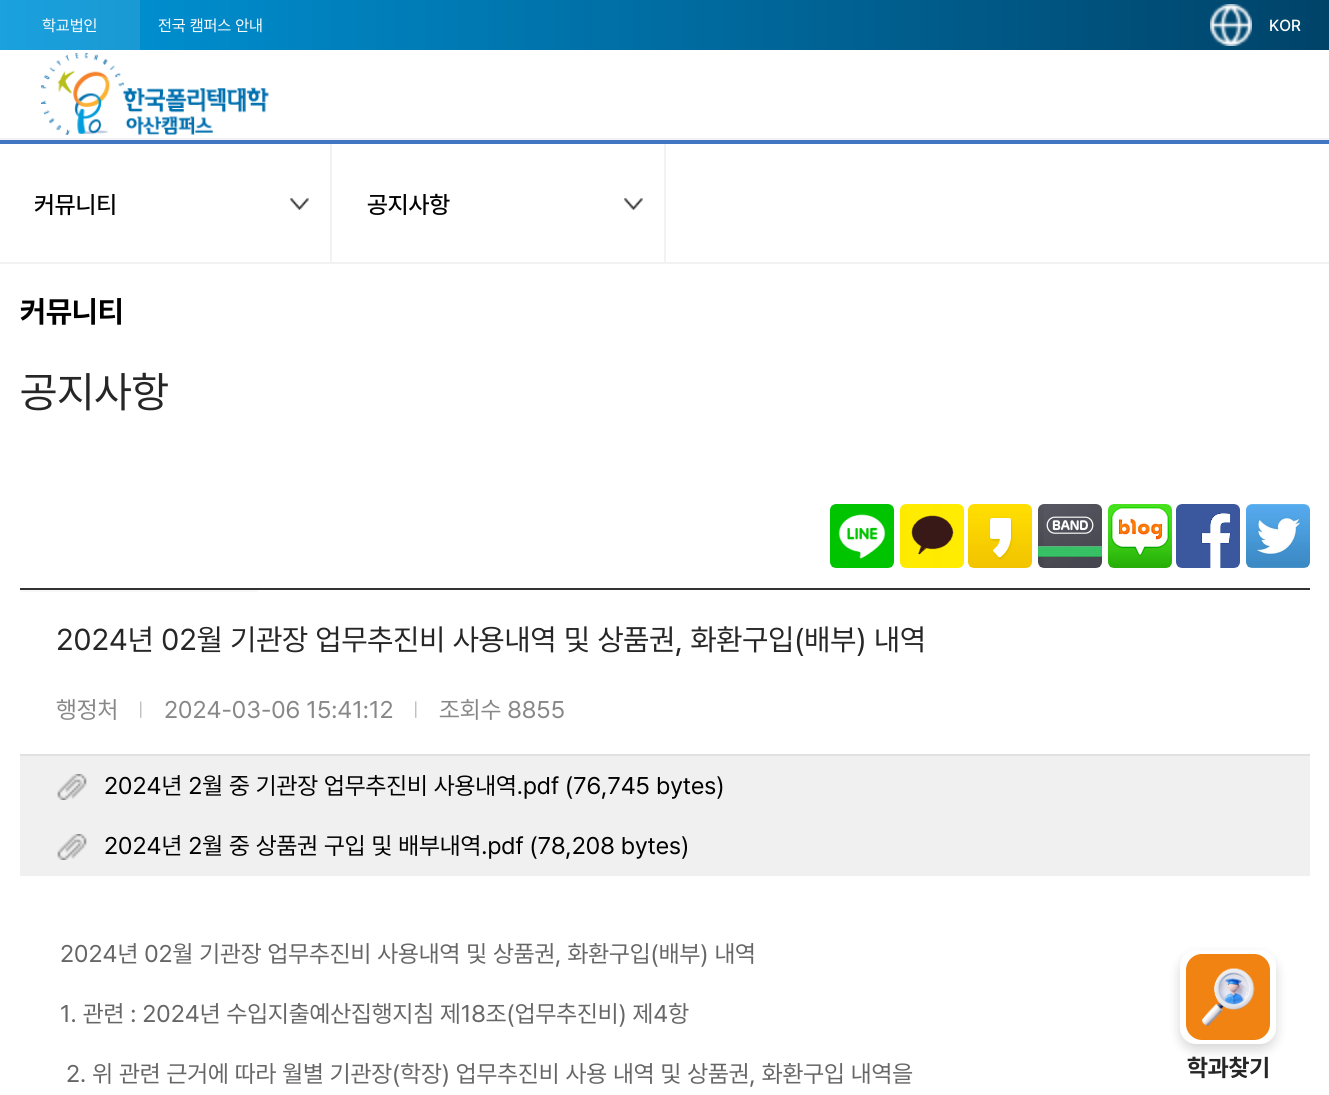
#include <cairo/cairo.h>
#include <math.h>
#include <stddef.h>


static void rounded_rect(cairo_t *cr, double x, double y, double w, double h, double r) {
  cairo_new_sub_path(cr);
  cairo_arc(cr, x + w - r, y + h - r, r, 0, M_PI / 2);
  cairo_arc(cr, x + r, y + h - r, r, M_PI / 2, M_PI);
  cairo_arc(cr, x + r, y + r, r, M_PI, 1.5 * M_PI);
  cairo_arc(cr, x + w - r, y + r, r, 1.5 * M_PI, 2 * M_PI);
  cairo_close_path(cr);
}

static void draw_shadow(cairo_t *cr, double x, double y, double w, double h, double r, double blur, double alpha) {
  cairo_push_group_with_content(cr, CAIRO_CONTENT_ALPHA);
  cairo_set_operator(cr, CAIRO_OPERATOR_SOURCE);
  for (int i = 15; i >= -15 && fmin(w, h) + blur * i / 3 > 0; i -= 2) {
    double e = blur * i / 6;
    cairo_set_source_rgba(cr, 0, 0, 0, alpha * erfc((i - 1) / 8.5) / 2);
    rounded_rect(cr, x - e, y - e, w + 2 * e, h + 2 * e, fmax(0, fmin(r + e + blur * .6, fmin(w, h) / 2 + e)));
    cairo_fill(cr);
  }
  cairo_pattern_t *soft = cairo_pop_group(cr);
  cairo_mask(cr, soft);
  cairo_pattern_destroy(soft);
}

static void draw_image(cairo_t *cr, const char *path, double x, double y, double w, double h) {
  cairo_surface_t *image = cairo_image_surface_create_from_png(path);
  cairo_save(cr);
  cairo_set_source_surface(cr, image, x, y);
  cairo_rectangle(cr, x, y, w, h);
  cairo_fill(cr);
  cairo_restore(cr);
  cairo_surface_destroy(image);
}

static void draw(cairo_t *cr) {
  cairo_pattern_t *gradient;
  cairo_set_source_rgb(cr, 1, 1, 1);
  cairo_paint(cr);
  cairo_set_source_rgb(cr, 242 / 255.0, 242 / 255.0, 242 / 255.0);
  cairo_rectangle(cr, 0, 138, 1329, 2);
  cairo_fill(cr);
  gradient = cairo_pattern_create_linear(0, 25, 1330, 25);
  cairo_pattern_add_color_stop_rgba(gradient, 0, 0, 150 / 255.0, 218 / 255.0, 1);
  cairo_pattern_add_color_stop_rgba(gradient, 1, 0, 67 / 255.0, 105 / 255.0, 1);
  cairo_set_source(cr, gradient);
  cairo_pattern_destroy(gradient);
  cairo_rectangle(cr, 140, 0, 1189, 50);
  cairo_fill(cr);
  gradient = cairo_pattern_create_linear(0, 25, 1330, 25);
  cairo_pattern_add_color_stop_rgba(gradient, 0, 26 / 255.0, 161 / 255.0, 222 / 255.0, 1);
  cairo_pattern_add_color_stop_rgba(gradient, 1, 26 / 255.0, 86 / 255.0, 120 / 255.0, 1);
  cairo_set_source(cr, gradient);
  cairo_pattern_destroy(gradient);
  cairo_rectangle(cr, 0, 0, 140, 50);
  cairo_fill(cr);
  draw_image(cr, "images/1.png", 1210, 4, 42, 42);
  draw_image(cr, "images/2.png", 41, 53, 228, 82);
  cairo_set_source_rgb(cr, 0, 0, 0);
  draw_shadow(cr, 1180, 956, 96, 94, 16, 6, 0.16);
  cairo_set_source_rgb(cr, 1, 1, 1);
  rounded_rect(cr, 1180, 950, 96, 94, 16);
  cairo_fill(cr);
  cairo_set_source_rgb(cr, 240 / 255.0, 131 / 255.0, 18 / 255.0);
  rounded_rect(cr, 1186, 954, 84, 86, 16);
  cairo_fill(cr);
  draw_image(cr, "images/3.png", 1201, 967, 54, 60);
  cairo_set_source_rgb(cr, 65 / 255.0, 118 / 255.0, 194 / 255.0);
  cairo_rectangle(cr, 0, 140, 1329, 4);
  cairo_fill(cr);
  draw_image(cr, "images/4.png", 290, 198, 19, 12);
  cairo_set_source_rgb(cr, 242 / 255.0, 242 / 255.0, 242 / 255.0);
  cairo_rectangle(cr, 330, 144, 2, 120);
  cairo_fill(cr);
  draw_image(cr, "images/5.png", 624, 198, 19, 12);
  cairo_rectangle(cr, 664, 144, 2, 120);
  cairo_fill(cr);
  cairo_rectangle(cr, 0, 262, 1329, 2);
  cairo_fill(cr);
  draw_image(cr, "images/6.png", 830, 504, 64, 64);
  draw_image(cr, "images/7.png", 900, 504, 64, 64);
  draw_image(cr, "images/8.png", 968, 504, 64, 64);
  draw_image(cr, "images/9.png", 1038, 504, 64, 64);
  draw_image(cr, "images/10.png", 1108, 504, 64, 64);
  draw_image(cr, "images/11.png", 1176, 504, 64, 64);
  draw_image(cr, "images/12.png", 1246, 504, 64, 64);
  cairo_set_source_rgb(cr, 51 / 255.0, 51 / 255.0, 51 / 255.0);
  cairo_rectangle(cr, 20, 588, 1290, 2);
  cairo_fill(cr);
  cairo_set_source_rgb(cr, 248 / 255.0, 248 / 255.0, 248 / 255.0);
  cairo_rectangle(cr, 20, 590, 238, 2);
  cairo_fill(cr);
  cairo_set_source_rgb(cr, 225 / 255.0, 225 / 255.0, 225 / 255.0);
  cairo_rectangle(cr, 20, 754, 1290, 2);
  cairo_fill(cr);
  cairo_set_source_rgb(cr, 240 / 255.0, 240 / 255.0, 240 / 255.0);
  cairo_rectangle(cr, 20, 756, 1290, 120);
  cairo_fill(cr);
  draw_image(cr, "images/13.png", 57, 774, 30, 26);
  draw_image(cr, "images/13.png", 57, 834, 30, 26);
  cairo_select_font_face(cr, "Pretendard", CAIRO_FONT_SLANT_NORMAL, CAIRO_FONT_WEIGHT_NORMAL);
  cairo_set_font_size(cr, 16);
  cairo_set_source_rgb(cr, 1, 1, 1);
  cairo_move_to(cr, 42, 31);
  cairo_show_text(cr, "학교법인");
  cairo_move_to(cr, 158, 31);
  cairo_show_text(cr, "전국 캠퍼스 안내");
  cairo_select_font_face(cr, "Pretendard Medium", CAIRO_FONT_SLANT_NORMAL, CAIRO_FONT_WEIGHT_NORMAL);
  cairo_move_to(cr, 1269, 31);
  cairo_show_text(cr, "KOR");
  cairo_select_font_face(cr, "Pretendard", CAIRO_FONT_SLANT_NORMAL, CAIRO_FONT_WEIGHT_BOLD);
  cairo_set_font_size(cr, 24);
  cairo_set_source_rgb(cr, 38 / 255.0, 38 / 255.0, 38 / 255.0);
  cairo_move_to(cr, 1187, 1076);
  cairo_show_text(cr, "학과찾기");
  cairo_select_font_face(cr, "Pretendard Medium", CAIRO_FONT_SLANT_NORMAL, CAIRO_FONT_WEIGHT_NORMAL);
  cairo_set_source_rgb(cr, 0, 0, 0);
  cairo_move_to(cr, 34, 213);
  cairo_show_text(cr, "커뮤니티");
  cairo_move_to(cr, 367, 213);
  cairo_show_text(cr, "공지사항");
  cairo_select_font_face(cr, "Pretendard", CAIRO_FONT_SLANT_NORMAL, CAIRO_FONT_WEIGHT_BOLD);
  cairo_set_font_size(cr, 30);
  cairo_move_to(cr, 20, 322);
  cairo_show_text(cr, "커뮤니티");
  cairo_select_font_face(cr, "Pretendard", CAIRO_FONT_SLANT_NORMAL, CAIRO_FONT_WEIGHT_NORMAL);
  cairo_set_font_size(cr, 43);
  cairo_set_source_rgb(cr, 38 / 255.0, 38 / 255.0, 38 / 255.0);
  cairo_move_to(cr, 20, 407);
  cairo_show_text(cr, "공지사항");
  cairo_set_font_size(cr, 30);
  cairo_move_to(cr, 56, 650);
  cairo_show_text(cr, "2024년 02월 기관장 업무추진비 사용내역 및 상품권, 화환구입(배부) 내역");
  cairo_set_font_size(cr, 24);
  cairo_set_source_rgb(cr, 135 / 255.0, 135 / 255.0, 135 / 255.0);
  cairo_move_to(cr, 56, 718);
  cairo_show_text(cr, "행정처");
  cairo_set_font_size(cr, 18);
  cairo_set_source_rgb(cr, 186 / 255.0, 186 / 255.0, 186 / 255.0);
  cairo_move_to(cr, 138, 716);
  cairo_show_text(cr, "|");
  cairo_set_font_size(cr, 24);
  cairo_set_source_rgb(cr, 135 / 255.0, 135 / 255.0, 135 / 255.0);
  cairo_move_to(cr, 164, 718);
  cairo_show_text(cr, "2024-03-06 15:41:12");
  cairo_set_font_size(cr, 18);
  cairo_set_source_rgb(cr, 186 / 255.0, 186 / 255.0, 186 / 255.0);
  cairo_move_to(cr, 413, 716);
  cairo_show_text(cr, "|");
  cairo_set_font_size(cr, 24);
  cairo_set_source_rgb(cr, 135 / 255.0, 135 / 255.0, 135 / 255.0);
  cairo_move_to(cr, 439, 718);
  cairo_show_text(cr, "조회수 8855");
  cairo_set_source_rgb(cr, 0, 0, 0);
  cairo_move_to(cr, 104, 794);
  cairo_show_text(cr, "2024년 2월 중 기관장 업무추진비 사용내역.pdf (76,745 bytes)");
  cairo_move_to(cr, 104, 854);
  cairo_show_text(cr, "2024년 2월 중 상품권 구입 및 배부내역.pdf (78,208 bytes)");
  cairo_set_source_rgb(cr, 102 / 255.0, 102 / 255.0, 102 / 255.0);
  cairo_move_to(cr, 60, 962);
  cairo_show_text(cr, "2024년 02월 기관장 업무추진비 사용내역 및 상품권, 화환구입(배부) 내역");
  cairo_move_to(cr, 60, 1022);
  cairo_show_text(cr, "1. 관련 : 2024년 수입지출예산집행지침 제18조(업무추진비) 제4항");
  cairo_move_to(cr, 66, 1082);
  cairo_show_text(cr, "2. 위 관련 근거에 따라 월별 기관장(학장) 업무추진비 사용 내역 및 상품권, 화환구입 내역을");
}

int main(void) {
  cairo_surface_t *surface = cairo_image_surface_create(CAIRO_FORMAT_RGB24, 1329, 1095);
  cairo_t *cr = cairo_create(surface);
  cairo_font_options_t *options = cairo_font_options_create();
  cairo_font_options_set_hint_metrics(options, CAIRO_HINT_METRICS_OFF);
  cairo_font_options_set_hint_style(options, CAIRO_HINT_STYLE_NONE);
  cairo_set_font_options(cr, options);
  cairo_set_miter_limit(cr, 4);
  draw(cr);
  cairo_surface_write_to_png(surface, "out.png");
  cairo_font_options_destroy(options);
  cairo_destroy(cr);
  cairo_surface_destroy(surface);
  return 0;
}
